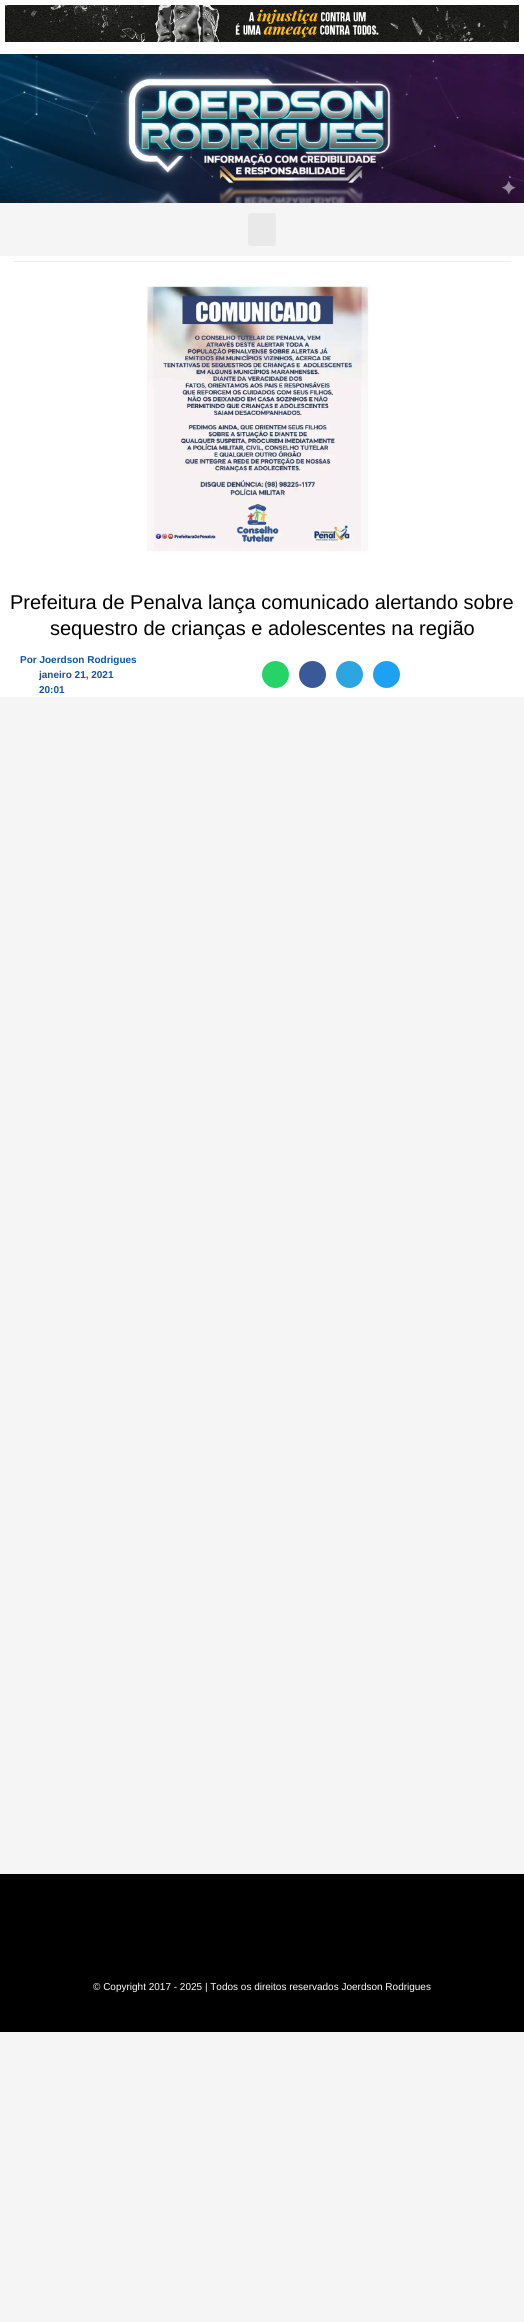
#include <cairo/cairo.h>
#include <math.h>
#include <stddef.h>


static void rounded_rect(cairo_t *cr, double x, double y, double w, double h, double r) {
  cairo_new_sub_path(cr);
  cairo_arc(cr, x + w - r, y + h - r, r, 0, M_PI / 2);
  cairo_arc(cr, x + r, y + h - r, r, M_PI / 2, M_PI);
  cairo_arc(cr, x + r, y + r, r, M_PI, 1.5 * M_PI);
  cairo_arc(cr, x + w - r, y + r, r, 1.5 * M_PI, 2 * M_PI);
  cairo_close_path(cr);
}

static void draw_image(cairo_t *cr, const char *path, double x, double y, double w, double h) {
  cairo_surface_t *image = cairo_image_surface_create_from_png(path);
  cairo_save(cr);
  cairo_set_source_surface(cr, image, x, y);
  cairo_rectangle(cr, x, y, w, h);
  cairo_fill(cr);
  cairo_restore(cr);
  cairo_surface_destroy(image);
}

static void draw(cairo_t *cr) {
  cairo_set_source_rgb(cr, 245 / 255.0, 245 / 255.0, 245 / 255.0);
  cairo_paint(cr);
  cairo_set_source_rgb(cr, 1, 1, 1);
  cairo_rectangle(cr, 0, 0, 524, 54);
  cairo_fill(cr);
  draw_image(cr, "images/1.png", 5, 5, 514, 37);
  draw_image(cr, "images/2.png", 0, 54, 524, 149);
  cairo_set_source_rgb(cr, 233 / 255.0, 233 / 255.0, 233 / 255.0);
  rounded_rect(cr, 248, 213, 28, 33, 3);
  cairo_fill(cr);
  cairo_set_source_rgb(cr, 1, 1, 1);
  cairo_rectangle(cr, 0, 256, 524, 441);
  cairo_fill(cr);
  cairo_set_source_rgb(cr, 237 / 255.0, 237 / 255.0, 237 / 255.0);
  cairo_rectangle(cr, 13, 261, 498, 1);
  cairo_fill(cr);
  draw_image(cr, "images/3.png", 146, 284, 224, 268);
  cairo_set_source_rgb(cr, 37 / 255.0, 211 / 255.0, 102 / 255.0);
  cairo_arc(cr, 275.5, 674.5, 13.5, 0, 2 * M_PI);
  cairo_fill(cr);
  cairo_set_source_rgb(cr, 59 / 255.0, 89 / 255.0, 152 / 255.0);
  cairo_arc(cr, 312.5, 674.5, 13.5, 0, 2 * M_PI);
  cairo_fill(cr);
  cairo_set_source_rgb(cr, 44 / 255.0, 165 / 255.0, 224 / 255.0);
  cairo_arc(cr, 349.5, 674.5, 13.5, 0, 2 * M_PI);
  cairo_fill(cr);
  cairo_set_source_rgb(cr, 29 / 255.0, 161 / 255.0, 242 / 255.0);
  cairo_arc(cr, 386.5, 674.5, 13.5, 0, 2 * M_PI);
  cairo_fill(cr);
  cairo_set_source_rgb(cr, 0, 0, 0);
  cairo_rectangle(cr, 0, 1874, 524, 158);
  cairo_fill(cr);
  cairo_select_font_face(cr, "Liberation Sans", CAIRO_FONT_SLANT_NORMAL, CAIRO_FONT_WEIGHT_NORMAL);
  cairo_set_font_size(cr, 20);
  cairo_move_to(cr, 10, 609);
  cairo_show_text(cr, "Prefeitura de Penalva lança comunicado alertando sobre");
  cairo_move_to(cr, 50, 635);
  cairo_show_text(cr, "sequestro de crianças e adolescentes na região");
  cairo_select_font_face(cr, "Liberation Sans", CAIRO_FONT_SLANT_NORMAL, CAIRO_FONT_WEIGHT_BOLD);
  cairo_set_font_size(cr, 10);
  cairo_set_source_rgb(cr, 16 / 255.0, 83 / 255.0, 160 / 255.0);
  cairo_move_to(cr, 20, 663);
  cairo_show_text(cr, "Por Joerdson Rodrigues");
  cairo_move_to(cr, 39, 678);
  cairo_show_text(cr, "janeiro 21, 2021");
  cairo_move_to(cr, 39, 693);
  cairo_show_text(cr, "20:01");
  cairo_select_font_face(cr, "Liberation Sans", CAIRO_FONT_SLANT_NORMAL, CAIRO_FONT_WEIGHT_NORMAL);
  cairo_set_source_rgb(cr, 1, 1, 1);
  cairo_move_to(cr, 93, 1990);
  cairo_show_text(cr, "© Copyright 2017 - 2025 | Todos os direitos reservados Joerdson Rodrigues");
}

int main(void) {
  cairo_surface_t *surface = cairo_image_surface_create(CAIRO_FORMAT_RGB24, 524, 2322);
  cairo_t *cr = cairo_create(surface);
  cairo_font_options_t *options = cairo_font_options_create();
  cairo_font_options_set_hint_metrics(options, CAIRO_HINT_METRICS_OFF);
  cairo_font_options_set_hint_style(options, CAIRO_HINT_STYLE_NONE);
  cairo_set_font_options(cr, options);
  cairo_set_miter_limit(cr, 4);
  draw(cr);
  cairo_surface_write_to_png(surface, "out.png");
  cairo_font_options_destroy(options);
  cairo_destroy(cr);
  cairo_surface_destroy(surface);
  return 0;
}
